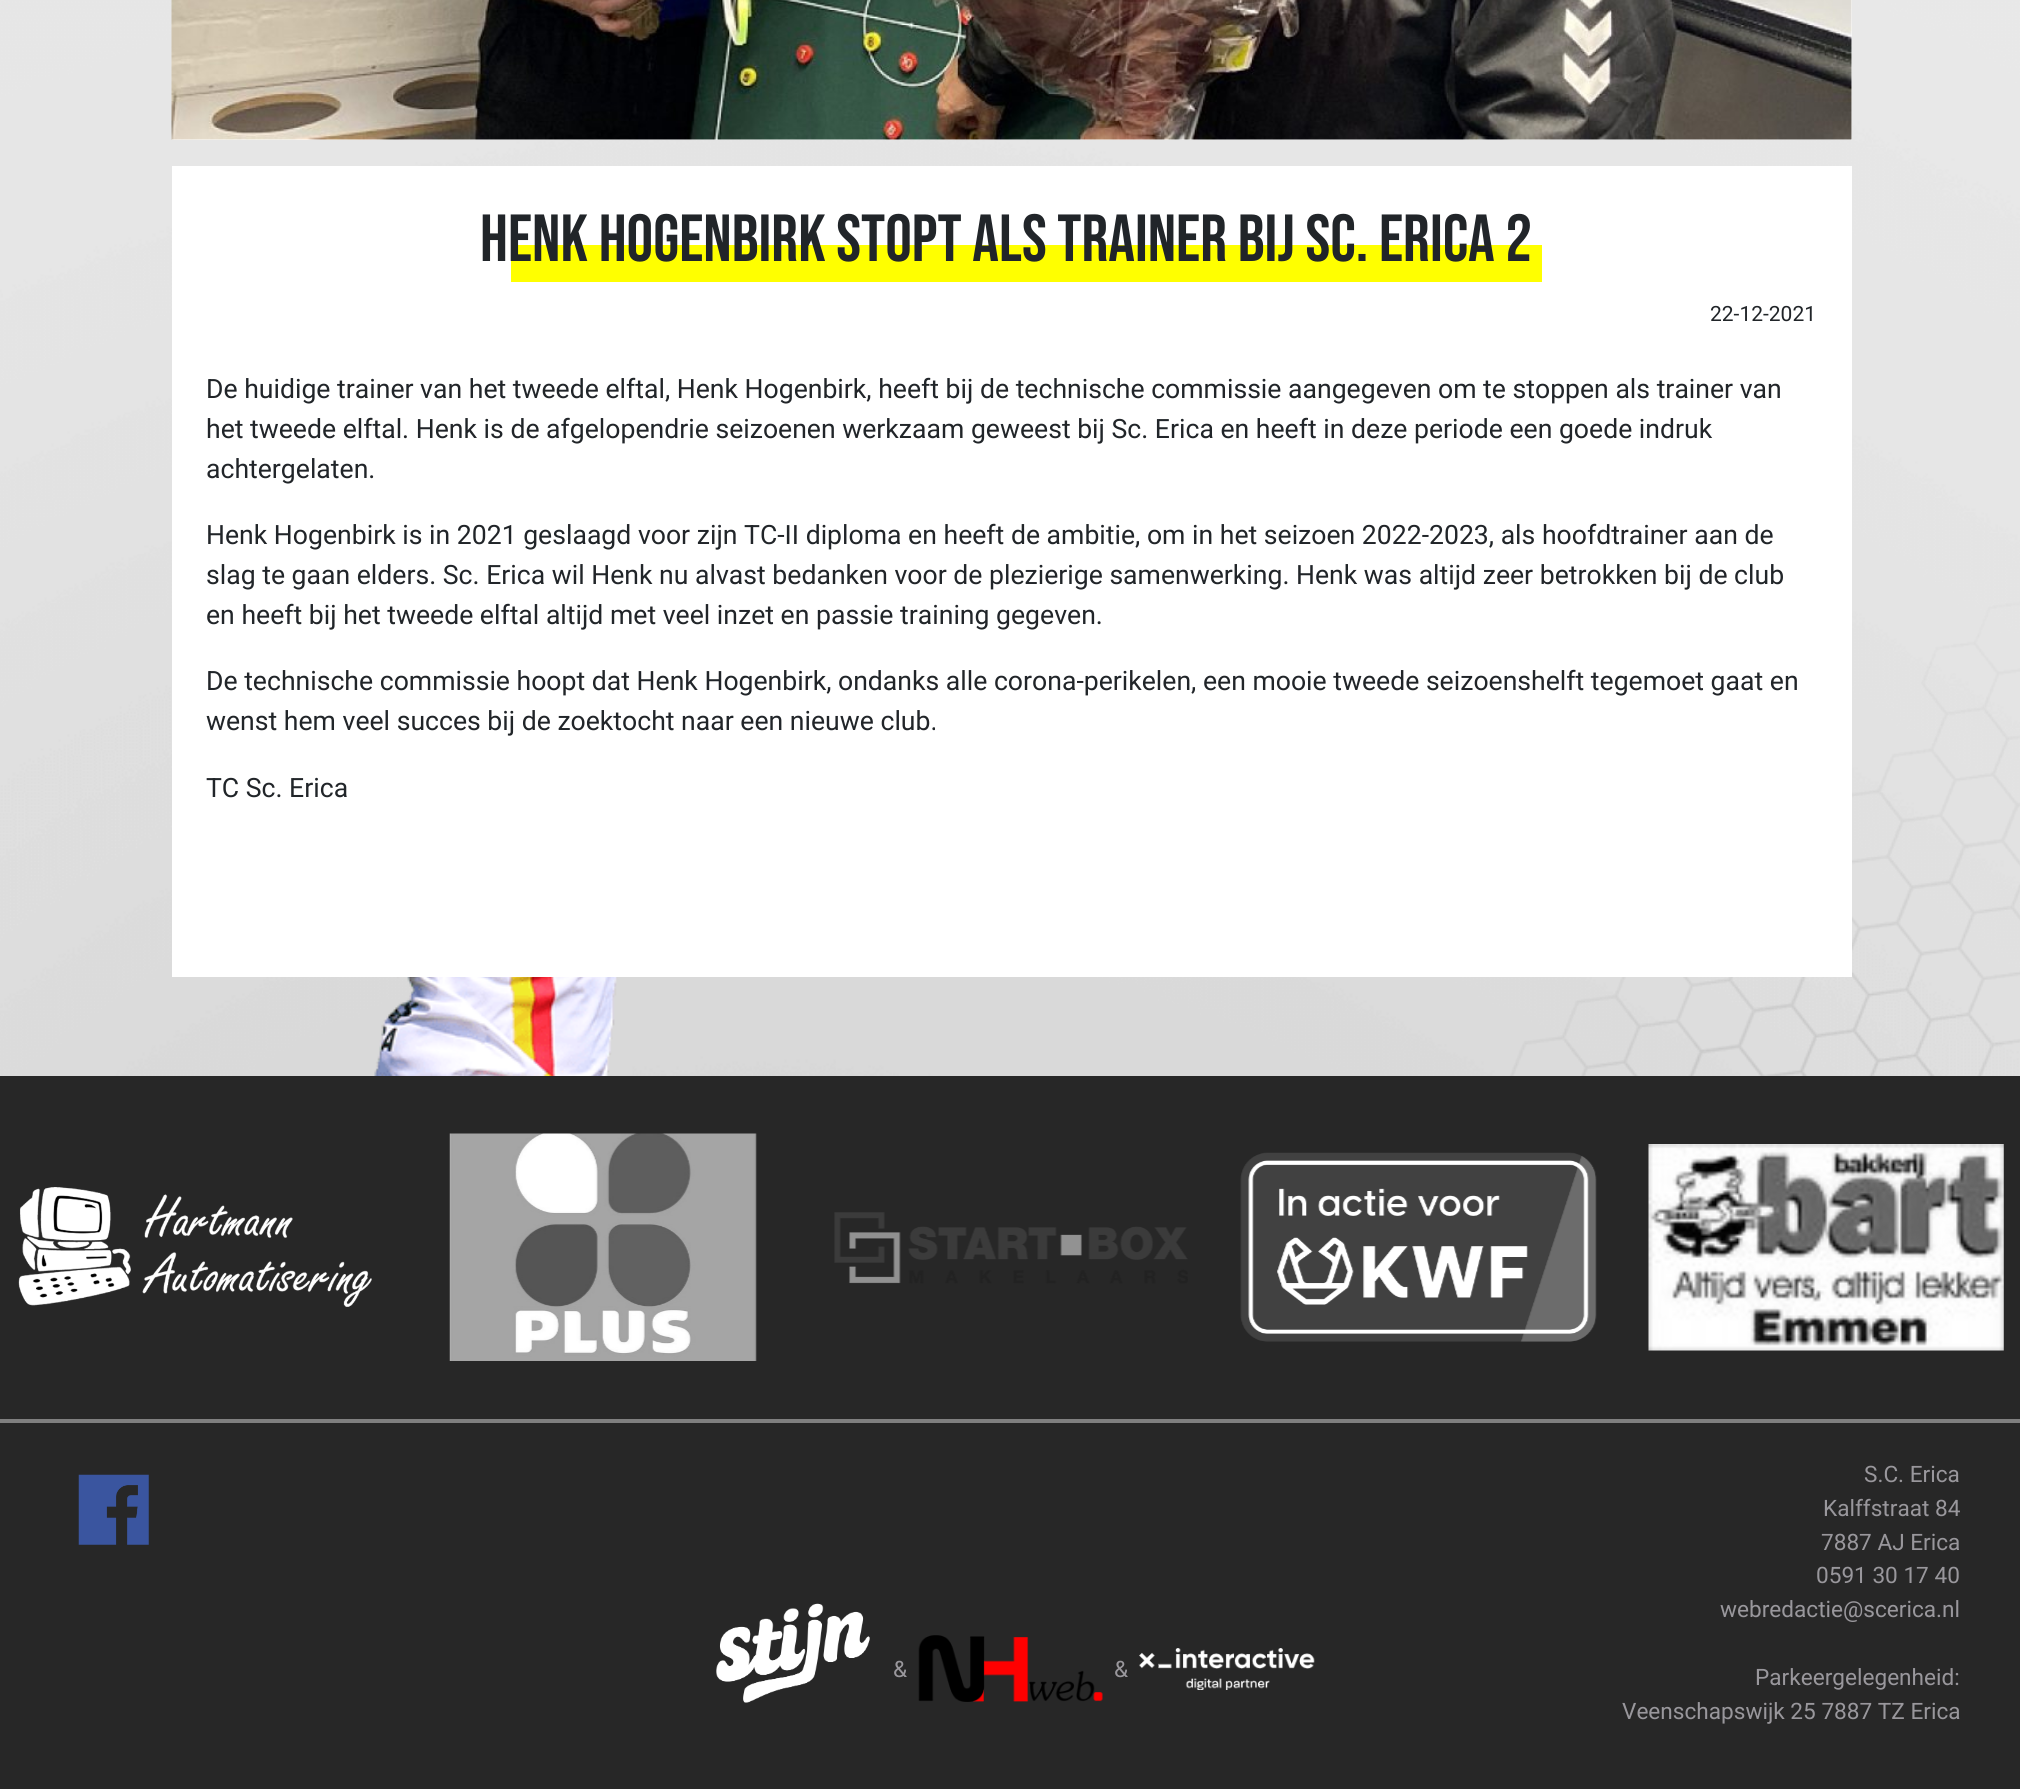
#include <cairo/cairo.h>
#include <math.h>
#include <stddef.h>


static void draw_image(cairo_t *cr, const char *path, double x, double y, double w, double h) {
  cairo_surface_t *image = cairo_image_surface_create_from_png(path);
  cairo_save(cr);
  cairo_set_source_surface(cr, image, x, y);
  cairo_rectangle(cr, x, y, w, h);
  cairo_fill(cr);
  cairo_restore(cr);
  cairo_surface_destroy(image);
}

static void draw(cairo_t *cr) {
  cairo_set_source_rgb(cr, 1, 1, 1);
  cairo_paint(cr);
  draw_image(cr, "images/1.png", 0, 0, 2020, 1076);
  cairo_set_source_rgb(cr, 1, 1, 1);
  cairo_rectangle(cr, 172, 0, 1680, 140);
  cairo_fill(cr);
  draw_image(cr, "images/2.png", 171, 0, 1681, 140);
  cairo_rectangle(cr, 172, 166, 1680, 811);
  cairo_fill(cr);
  cairo_set_source_rgb(cr, 1, 1, 0);
  cairo_rectangle(cr, 511, 245, 1031, 37);
  cairo_fill(cr);
  cairo_set_source_rgb(cr, 39 / 255.0, 39 / 255.0, 39 / 255.0);
  cairo_rectangle(cr, 0, 1076, 2020, 343);
  cairo_fill(cr);
  cairo_set_source_rgb(cr, 127 / 255.0, 127 / 255.0, 127 / 255.0);
  cairo_rectangle(cr, 0, 1419, 2020, 4);
  cairo_fill(cr);
  draw_image(cr, "images/3.png", 18, 1187, 354, 120);
  draw_image(cr, "images/4.png", 449, 1133, 308, 228);
  draw_image(cr, "images/5.png", 834, 1212, 354, 72);
  draw_image(cr, "images/6.png", 1240, 1152, 357, 190);
  draw_image(cr, "images/7.png", 1648, 1144, 356, 207);
  cairo_set_source_rgb(cr, 39 / 255.0, 39 / 255.0, 39 / 255.0);
  cairo_rectangle(cr, 0, 1423, 2020, 366);
  cairo_fill(cr);
  draw_image(cr, "images/8.png", 78, 1474, 71, 71);
  draw_image(cr, "images/9.png", 716, 1603, 154, 100);
  draw_image(cr, "images/10.png", 918, 1635, 185, 67);
  draw_image(cr, "images/11.png", 1139, 1648, 176, 42);
  cairo_select_font_face(cr, "Bebas Neue", CAIRO_FONT_SLANT_NORMAL, CAIRO_FONT_WEIGHT_NORMAL);
  cairo_set_font_size(cr, 66.5);
  cairo_set_source_rgb(cr, 33 / 255.0, 37 / 255.0, 41 / 255.0);
  cairo_move_to(cr, 480, 261);
  cairo_show_text(cr, "Henk Hogenbirk stopt als trainer bij Sc. Erica 2");
  cairo_select_font_face(cr, "Roboto", CAIRO_FONT_SLANT_NORMAL, CAIRO_FONT_WEIGHT_NORMAL);
  cairo_set_font_size(cr, 21);
  cairo_move_to(cr, 1710, 321);
  cairo_show_text(cr, "22-12-2021");
  cairo_set_font_size(cr, 26.6);
  cairo_move_to(cr, 206, 398);
  cairo_show_text(cr, "De huidige trainer van het tweede elftal, Henk Hogenbirk, heeft bij de technische commissie aangegeven om te stoppen als trainer van");
  cairo_move_to(cr, 206, 438);
  cairo_show_text(cr, "het tweede elftal. Henk is de afgelopendrie seizoenen werkzaam geweest bij Sc. Erica en heeft in deze periode een goede indruk");
  cairo_move_to(cr, 206, 478);
  cairo_show_text(cr, "achtergelaten.");
  cairo_move_to(cr, 206, 544);
  cairo_show_text(cr, "Henk Hogenbirk is in 2021 geslaagd voor zijn TC-II diploma en heeft de ambitie, om in het seizoen 2022-2023, als hoofdtrainer aan de");
  cairo_move_to(cr, 206, 584);
  cairo_show_text(cr, "slag te gaan elders. Sc. Erica wil Henk nu alvast bedanken voor de plezierige samenwerking. Henk was altijd zeer betrokken bij de club");
  cairo_move_to(cr, 206, 624);
  cairo_show_text(cr, "en heeft bij het tweede elftal altijd met veel inzet en passie training gegeven.");
  cairo_move_to(cr, 206, 690);
  cairo_show_text(cr, "De technische commissie hoopt dat Henk Hogenbirk, ondanks alle corona-perikelen, een mooie tweede seizoenshelft tegemoet gaat en");
  cairo_move_to(cr, 206, 730);
  cairo_show_text(cr, "wenst hem veel succes bij de zoektocht naar een nieuwe club.");
  cairo_move_to(cr, 206, 797);
  cairo_show_text(cr, "TC Sc. Erica");
  cairo_set_font_size(cr, 22.6);
  cairo_set_source_rgb(cr, 153 / 255.0, 151 / 255.0, 156 / 255.0);
  cairo_move_to(cr, 1864, 1482);
  cairo_show_text(cr, "S.C. Erica");
  cairo_move_to(cr, 1823, 1516);
  cairo_show_text(cr, "Kalffstraat 84");
  cairo_move_to(cr, 1821, 1550);
  cairo_show_text(cr, "7887 AJ Erica");
  cairo_move_to(cr, 1816, 1583);
  cairo_show_text(cr, "0591 30 17 40");
  cairo_move_to(cr, 1720, 1617);
  cairo_show_text(cr, "webredactie@scerica.nl");
  cairo_move_to(cr, 1755, 1685);
  cairo_show_text(cr, "Parkeergelegenheid:");
  cairo_move_to(cr, 1622, 1719);
  cairo_show_text(cr, "Veenschapswijk 25 7887 TZ Erica");
  cairo_move_to(cr, 893, 1677);
  cairo_show_text(cr, "&");
  cairo_move_to(cr, 1114, 1677);
  cairo_show_text(cr, "&");
}

int main(void) {
  cairo_surface_t *surface = cairo_image_surface_create(CAIRO_FORMAT_RGB24, 2020, 1789);
  cairo_t *cr = cairo_create(surface);
  cairo_font_options_t *options = cairo_font_options_create();
  cairo_font_options_set_hint_metrics(options, CAIRO_HINT_METRICS_OFF);
  cairo_font_options_set_hint_style(options, CAIRO_HINT_STYLE_NONE);
  cairo_set_font_options(cr, options);
  cairo_set_miter_limit(cr, 4);
  draw(cr);
  cairo_surface_write_to_png(surface, "out.png");
  cairo_font_options_destroy(options);
  cairo_destroy(cr);
  cairo_surface_destroy(surface);
  return 0;
}
